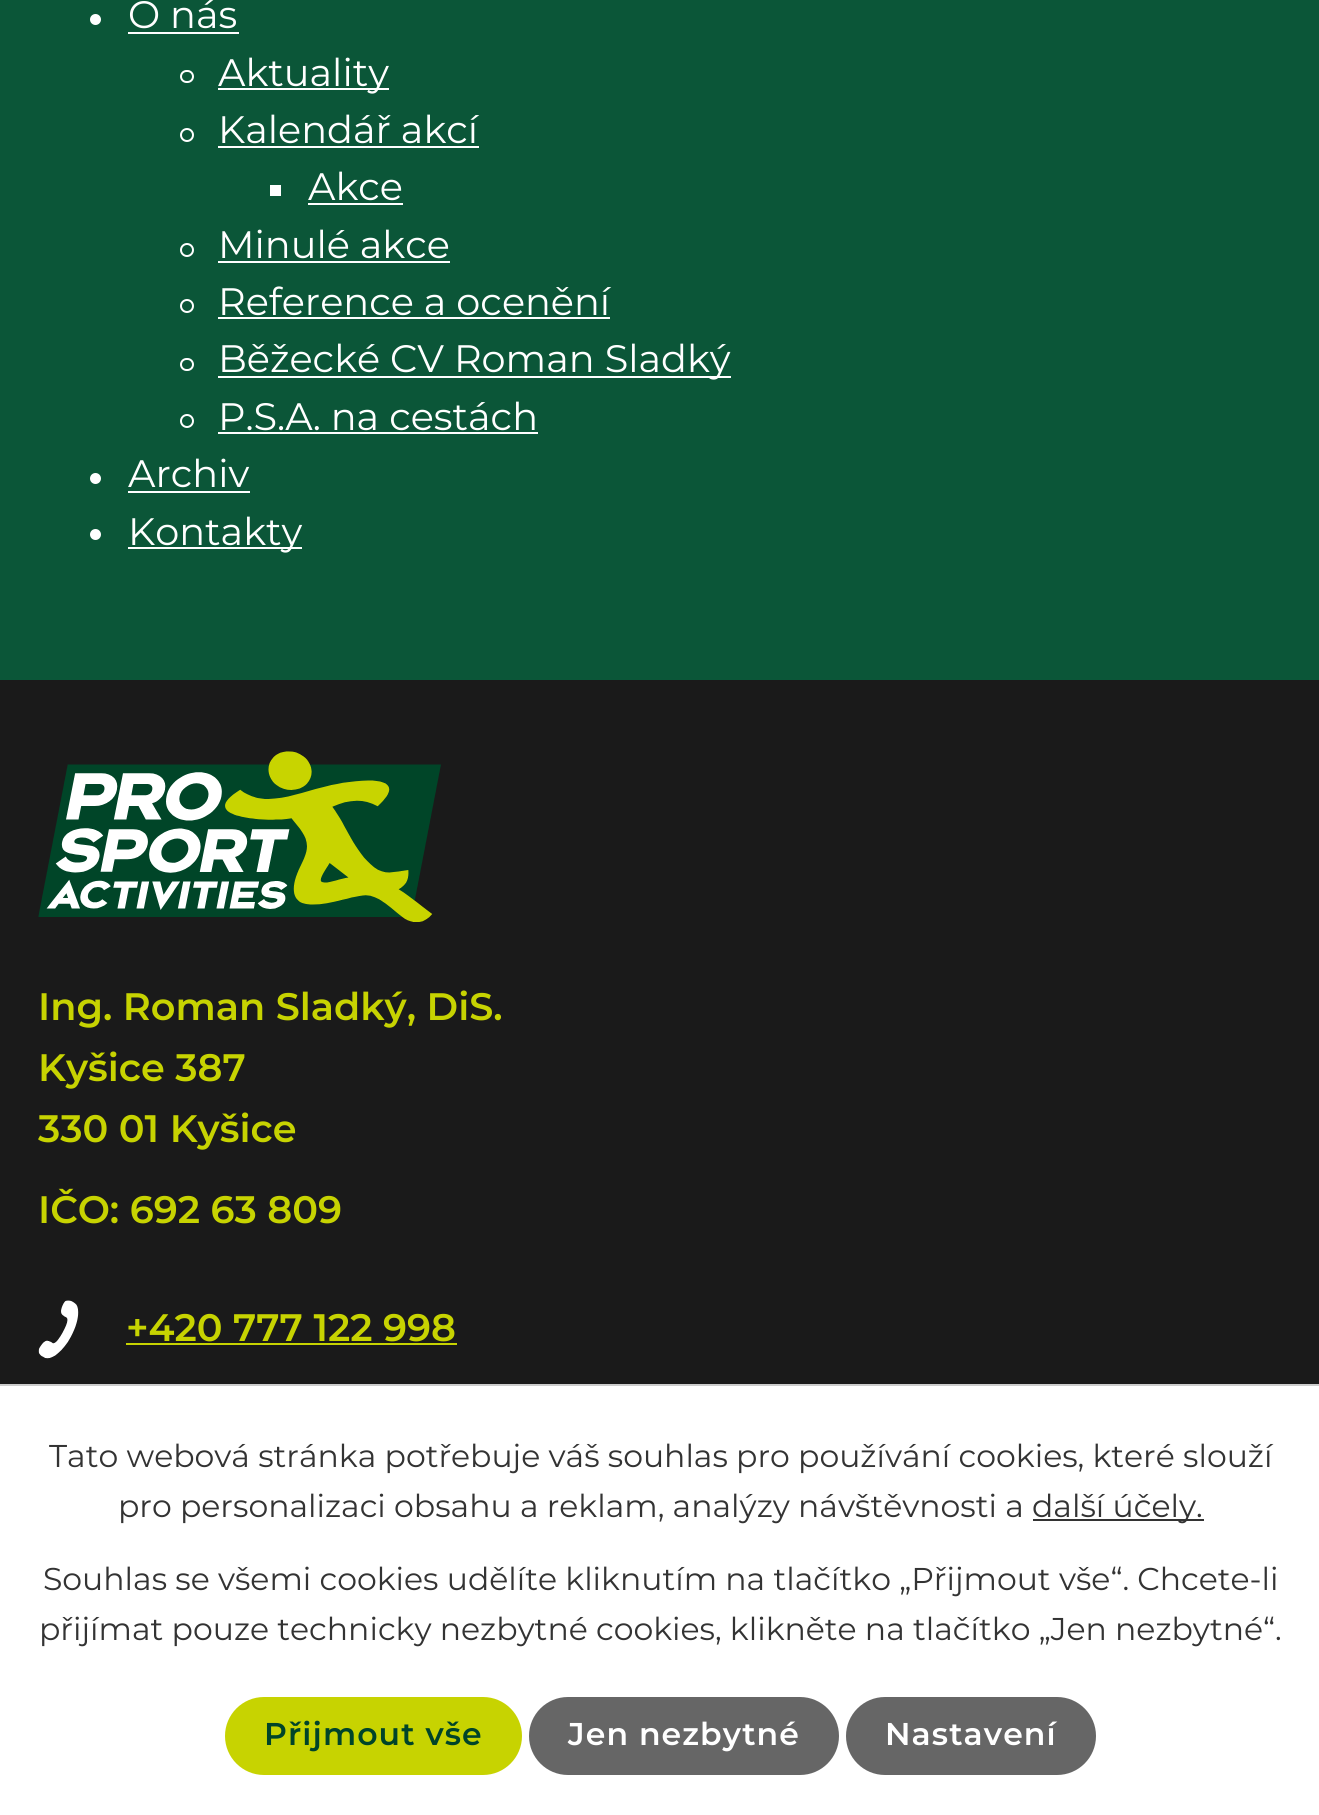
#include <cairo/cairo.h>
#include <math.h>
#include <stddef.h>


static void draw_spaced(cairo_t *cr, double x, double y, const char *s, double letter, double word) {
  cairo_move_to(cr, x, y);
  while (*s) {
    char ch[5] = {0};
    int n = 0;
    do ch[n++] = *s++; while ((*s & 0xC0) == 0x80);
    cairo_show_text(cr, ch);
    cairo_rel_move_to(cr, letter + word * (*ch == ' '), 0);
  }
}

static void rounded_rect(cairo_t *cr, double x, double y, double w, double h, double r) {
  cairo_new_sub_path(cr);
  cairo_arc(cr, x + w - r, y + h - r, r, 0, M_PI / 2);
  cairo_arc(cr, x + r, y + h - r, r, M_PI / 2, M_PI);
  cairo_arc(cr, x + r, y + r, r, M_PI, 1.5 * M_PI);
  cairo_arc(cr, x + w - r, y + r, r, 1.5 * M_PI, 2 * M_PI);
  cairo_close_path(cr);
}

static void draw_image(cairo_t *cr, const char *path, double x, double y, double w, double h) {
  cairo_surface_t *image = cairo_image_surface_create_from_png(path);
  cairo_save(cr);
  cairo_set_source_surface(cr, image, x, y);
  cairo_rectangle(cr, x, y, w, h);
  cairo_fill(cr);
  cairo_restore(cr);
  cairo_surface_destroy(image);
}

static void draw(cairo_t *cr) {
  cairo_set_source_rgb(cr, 26 / 255.0, 26 / 255.0, 26 / 255.0);
  cairo_paint(cr);
  cairo_set_source_rgb(cr, 11 / 255.0, 86 / 255.0, 56 / 255.0);
  cairo_rectangle(cr, 0, 0, 1319, 680);
  cairo_fill(cr);
  cairo_set_source_rgb(cr, 1, 1, 1);
  cairo_arc(cr, 95.5, 19.5, 5.5, 0, 2 * M_PI);
  cairo_fill(cr);
  cairo_rectangle(cr, 128, 32, 111, 2);
  cairo_fill(cr);
  rounded_rect(cr, 181, 71, 12, 11, 5.5);
  cairo_stroke(cr);
  cairo_rectangle(cr, 218, 88, 171, 2);
  cairo_fill(cr);
  cairo_arc(cr, 187, 135, 6, 0, 2 * M_PI);
  cairo_stroke(cr);
  cairo_rectangle(cr, 218, 146, 261, 2);
  cairo_fill(cr);
  cairo_rectangle(cr, 270, 185, 11, 11);
  cairo_fill(cr);
  cairo_rectangle(cr, 308, 203, 95, 2);
  cairo_fill(cr);
  cairo_arc(cr, 187, 250, 6, 0, 2 * M_PI);
  cairo_stroke(cr);
  cairo_rectangle(cr, 218, 261, 232, 2);
  cairo_fill(cr);
  cairo_arc(cr, 187, 306, 6, 0, 2 * M_PI);
  cairo_stroke(cr);
  cairo_rectangle(cr, 218, 317, 392, 2);
  cairo_fill(cr);
  rounded_rect(cr, 181, 359, 12, 11, 5.5);
  cairo_stroke(cr);
  cairo_rectangle(cr, 218, 376, 513, 2);
  cairo_fill(cr);
  cairo_arc(cr, 187, 421, 6, 0, 2 * M_PI);
  cairo_stroke(cr);
  cairo_rectangle(cr, 218, 432, 320, 2);
  cairo_fill(cr);
  cairo_arc(cr, 95.5, 478.5, 5.5, 0, 2 * M_PI);
  cairo_fill(cr);
  cairo_rectangle(cr, 128, 491, 122, 2);
  cairo_fill(cr);
  cairo_arc(cr, 95.5, 534.5, 5.5, 0, 2 * M_PI);
  cairo_fill(cr);
  cairo_rectangle(cr, 128, 547, 174, 2);
  cairo_fill(cr);
  draw_image(cr, "images/1.png", 38, 751, 403, 171);
  draw_image(cr, "images/2.png", 38, 1300, 41, 59);
  cairo_set_source_rgb(cr, 199 / 255.0, 211 / 255.0, 1 / 255.0);
  cairo_rectangle(cr, 126, 1343, 331, 2);
  cairo_fill(cr);
  cairo_set_source_rgb(cr, 1, 1, 1);
  cairo_rectangle(cr, 0, 1386, 1319, 429);
  cairo_fill(cr);
  cairo_set_source_rgb(cr, 204 / 255.0, 204 / 255.0, 204 / 255.0);
  cairo_rectangle(cr, 0, 1384, 1319, 2);
  cairo_fill(cr);
  cairo_set_source_rgb(cr, 51 / 255.0, 51 / 255.0, 51 / 255.0);
  cairo_rectangle(cr, 1033, 1519, 171, 2);
  cairo_fill(cr);
  cairo_set_source_rgb(cr, 199 / 255.0, 211 / 255.0, 1 / 255.0);
  rounded_rect(cr, 225, 1697, 297, 78, 39);
  cairo_fill(cr);
  cairo_set_source_rgb(cr, 102 / 255.0, 102 / 255.0, 102 / 255.0);
  rounded_rect(cr, 529, 1697, 310, 78, 39);
  cairo_fill(cr);
  rounded_rect(cr, 846, 1697, 250, 78, 39);
  cairo_fill(cr);
  cairo_select_font_face(cr, "Montserrat", CAIRO_FONT_SLANT_NORMAL, CAIRO_FONT_WEIGHT_NORMAL);
  cairo_set_font_size(cr, 38.25);
  cairo_set_source_rgb(cr, 1, 1, 1);
  cairo_move_to(cr, 128, 28);
  cairo_show_text(cr, "O nás");
  cairo_move_to(cr, 218, 86);
  cairo_show_text(cr, "Aktuality");
  cairo_move_to(cr, 218, 143);
  cairo_show_text(cr, "Kalendář akcí");
  cairo_move_to(cr, 308, 200);
  cairo_show_text(cr, "Akce");
  cairo_move_to(cr, 218, 258);
  cairo_show_text(cr, "Minulé akce");
  cairo_move_to(cr, 218, 315);
  cairo_show_text(cr, "Reference a ocenění");
  cairo_move_to(cr, 218, 372);
  cairo_show_text(cr, "Běžecké CV Roman Sladký");
  cairo_move_to(cr, 218, 430);
  cairo_show_text(cr, "P.S.A. na cestách");
  cairo_move_to(cr, 128, 487);
  cairo_show_text(cr, "Archiv");
  cairo_move_to(cr, 128, 545);
  cairo_show_text(cr, "Kontakty");
  cairo_select_font_face(cr, "Montserrat SemiBold", CAIRO_FONT_SLANT_NORMAL, CAIRO_FONT_WEIGHT_NORMAL);
  cairo_set_source_rgb(cr, 199 / 255.0, 211 / 255.0, 1 / 255.0);
  cairo_move_to(cr, 38, 1020);
  cairo_show_text(cr, "Ing. Roman Sladký, DiS.");
  cairo_move_to(cr, 38, 1081);
  cairo_show_text(cr, "Kyšice 387");
  cairo_move_to(cr, 38, 1142);
  cairo_show_text(cr, "330 01 Kyšice");
  cairo_move_to(cr, 38, 1223);
  cairo_show_text(cr, "IČO: 692 63 809");
  cairo_move_to(cr, 126, 1341);
  cairo_show_text(cr, "+420 777 122 998");
  cairo_select_font_face(cr, "Montserrat", CAIRO_FONT_SLANT_NORMAL, CAIRO_FONT_WEIGHT_NORMAL);
  cairo_set_font_size(cr, 31.5);
  cairo_set_source_rgb(cr, 51 / 255.0, 51 / 255.0, 51 / 255.0);
  cairo_move_to(cr, 49, 1467);
  cairo_show_text(cr, "Tato webová stránka potřebuje váš souhlas pro používání cookies, které slouží");
  cairo_move_to(cr, 118, 1517);
  cairo_show_text(cr, "pro personalizaci obsahu a reklam, analýzy návštěvnosti a");
  cairo_move_to(cr, 1032, 1517);
  cairo_show_text(cr, "další účely.");
  cairo_move_to(cr, 43, 1590);
  cairo_show_text(cr, "Souhlas se všemi cookies udělíte kliknutím na tlačítko „Přijmout vše“. Chcete-li");
  cairo_move_to(cr, 39, 1640);
  cairo_show_text(cr, "přijímat pouze technicky nezbytné cookies, klikněte na tlačítko „Jen nezbytné“.");
  cairo_select_font_face(cr, "Montserrat SemiBold", CAIRO_FONT_SLANT_NORMAL, CAIRO_FONT_WEIGHT_NORMAL);
  cairo_set_source_rgb(cr, 0, 68 / 255.0, 41 / 255.0);
  draw_spaced(cr, 264, 1745, "Přijmout vše", 1.1, 0);
  cairo_set_source_rgb(cr, 1, 1, 1);
  draw_spaced(cr, 568, 1745, "Jen nezbytné", 1.1, 0);
  draw_spaced(cr, 885, 1745, "Nastavení", 1.1, 0);
}

int main(void) {
  cairo_surface_t *surface = cairo_image_surface_create(CAIRO_FORMAT_RGB24, 1319, 1815);
  cairo_t *cr = cairo_create(surface);
  cairo_font_options_t *options = cairo_font_options_create();
  cairo_font_options_set_hint_metrics(options, CAIRO_HINT_METRICS_OFF);
  cairo_font_options_set_hint_style(options, CAIRO_HINT_STYLE_NONE);
  cairo_set_font_options(cr, options);
  cairo_set_miter_limit(cr, 4);
  draw(cr);
  cairo_surface_write_to_png(surface, "out.png");
  cairo_font_options_destroy(options);
  cairo_destroy(cr);
  cairo_surface_destroy(surface);
  return 0;
}
